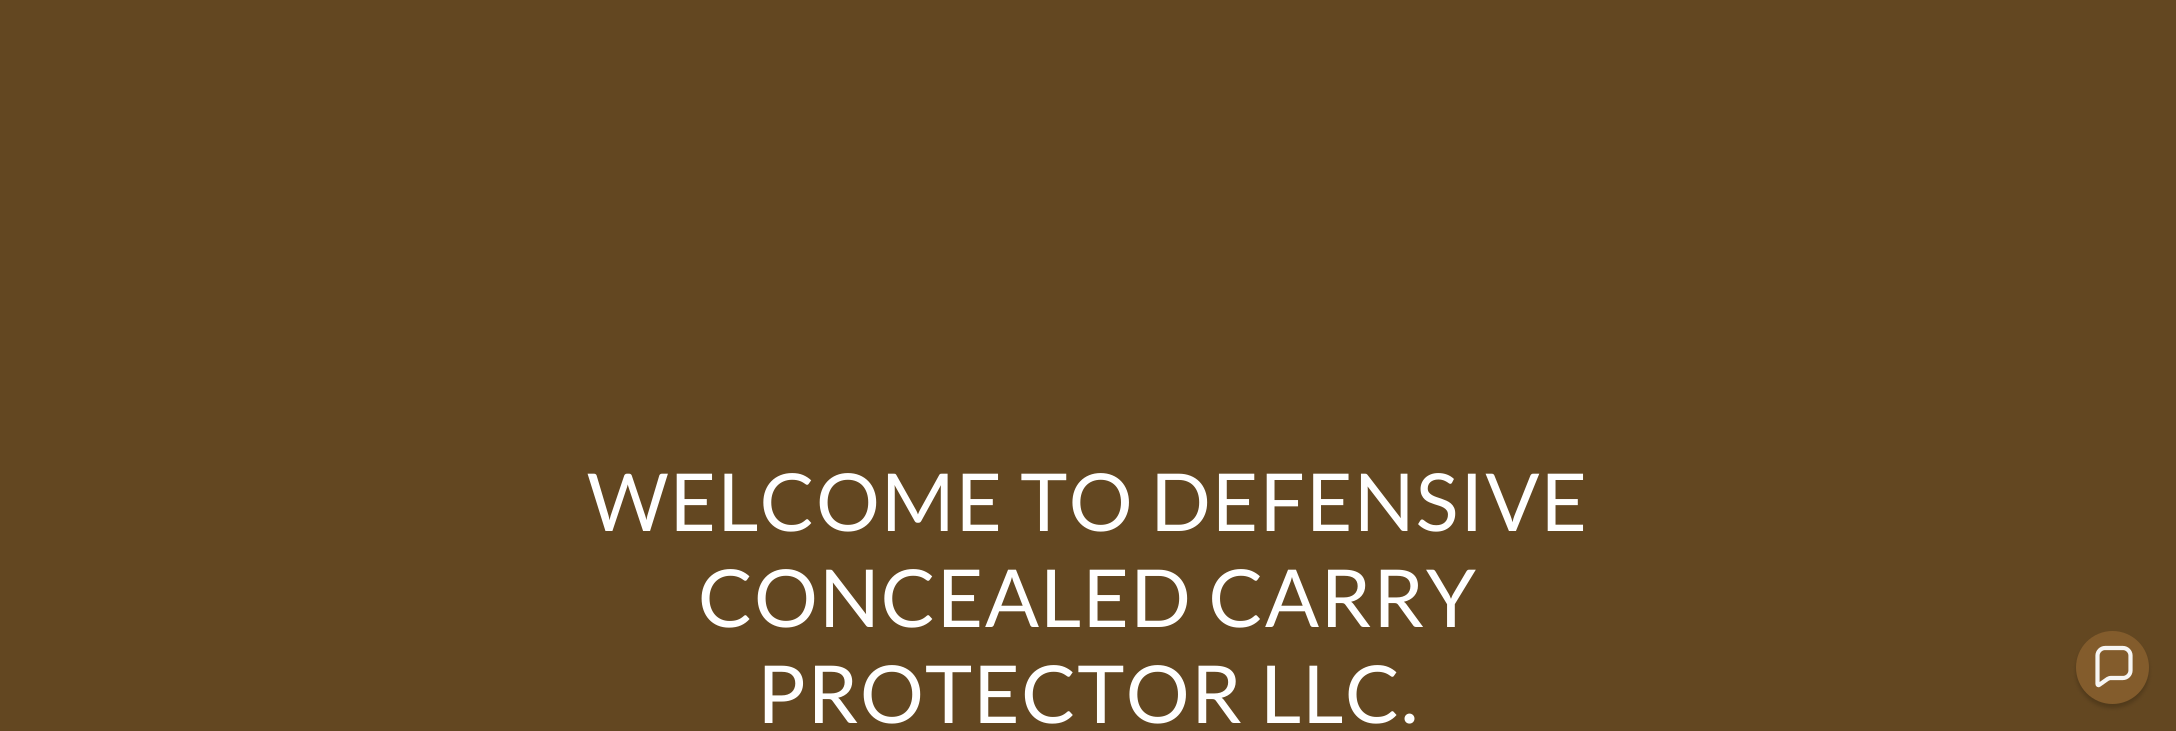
#include <cairo/cairo.h>
#include <math.h>
#include <stddef.h>


static void draw_spaced(cairo_t *cr, double x, double y, const char *s, double letter, double word) {
  cairo_move_to(cr, x, y);
  while (*s) {
    char ch[5] = {0};
    int n = 0;
    do ch[n++] = *s++; while ((*s & 0xC0) == 0x80);
    cairo_show_text(cr, ch);
    cairo_rel_move_to(cr, letter + word * (*ch == ' '), 0);
  }
}

static void rounded_rect(cairo_t *cr, double x, double y, double w, double h, double r) {
  cairo_new_sub_path(cr);
  cairo_arc(cr, x + w - r, y + h - r, r, 0, M_PI / 2);
  cairo_arc(cr, x + r, y + h - r, r, M_PI / 2, M_PI);
  cairo_arc(cr, x + r, y + r, r, M_PI, 1.5 * M_PI);
  cairo_arc(cr, x + w - r, y + r, r, 1.5 * M_PI, 2 * M_PI);
  cairo_close_path(cr);
}

static void draw_shadow(cairo_t *cr, double x, double y, double w, double h, double r, double blur, double alpha) {
  cairo_push_group_with_content(cr, CAIRO_CONTENT_ALPHA);
  cairo_set_operator(cr, CAIRO_OPERATOR_SOURCE);
  for (int i = 15; i >= -15 && fmin(w, h) + blur * i / 3 > 0; i -= 2) {
    double e = blur * i / 6;
    cairo_set_source_rgba(cr, 0, 0, 0, alpha * erfc((i - 1) / 8.5) / 2);
    rounded_rect(cr, x - e, y - e, w + 2 * e, h + 2 * e, fmax(0, fmin(r + e + blur * .6, fmin(w, h) / 2 + e)));
    cairo_fill(cr);
  }
  cairo_pattern_t *soft = cairo_pop_group(cr);
  cairo_mask(cr, soft);
  cairo_pattern_destroy(soft);
}

static void draw(cairo_t *cr) {
  cairo_set_source_rgb(cr, 99 / 255.0, 71 / 255.0, 33 / 255.0);
  cairo_paint(cr);
  cairo_set_source_rgb(cr, 5 / 255.0, 4 / 255.0, 2 / 255.0);
  draw_shadow(cr, 2076, 635, 73, 73, 36.5, 2, 0.2);
  cairo_set_source_rgb(cr, 131 / 255.0, 92 / 255.0, 44 / 255.0);
  cairo_arc(cr, 2112.5, 667.5, 36.5, 0, 2 * M_PI);
  cairo_fill(cr);
  cairo_new_path(cr);
  cairo_move_to(cr, 2123, 648);
  cairo_line_to(cr, 2105, 648);
  cairo_curve_to(cr, 2101, 648, 2097.5, 651.5, 2097.5, 655.5);
  cairo_line_to(cr, 2097.5, 684);
  cairo_curve_to(cr, 2097.5, 685, 2098.5, 685.5, 2099, 685);
  cairo_line_to(cr, 2107.5, 679);
  cairo_curve_to(cr, 2108.5, 678.5, 2109.5, 678, 2110.5, 678);
  cairo_line_to(cr, 2123, 678);
  cairo_curve_to(cr, 2127, 678, 2130.5, 674.5, 2130.5, 670.5);
  cairo_line_to(cr, 2130.5, 655.5);
  cairo_curve_to(cr, 2130.5, 651.5, 2127, 648, 2123, 648);
  cairo_close_path(cr);
  cairo_set_source_rgb(cr, 247 / 255.0, 246 / 255.0, 244 / 255.0);
  cairo_set_line_width(cr, 4.2);
  cairo_stroke(cr);
  cairo_select_font_face(cr, "Lato", CAIRO_FONT_SLANT_NORMAL, CAIRO_FONT_WEIGHT_NORMAL);
  cairo_set_font_size(cr, 80);
  cairo_set_source_rgb(cr, 1, 1, 1);
  draw_spaced(cr, 587, 531, "WELCOME TO DEFENSIVE", 1.25, 0);
  draw_spaced(cr, 698, 627, "CONCEALED CARRY", 1.25, 0);
  draw_spaced(cr, 757, 723, "PROTECTOR LLC.", 1.25, 0);
}

int main(void) {
  cairo_surface_t *surface = cairo_image_surface_create(CAIRO_FORMAT_RGB24, 2176, 731);
  cairo_t *cr = cairo_create(surface);
  cairo_font_options_t *options = cairo_font_options_create();
  cairo_font_options_set_hint_metrics(options, CAIRO_HINT_METRICS_OFF);
  cairo_font_options_set_hint_style(options, CAIRO_HINT_STYLE_NONE);
  cairo_set_font_options(cr, options);
  cairo_set_miter_limit(cr, 4);
  draw(cr);
  cairo_surface_write_to_png(surface, "out.png");
  cairo_font_options_destroy(options);
  cairo_destroy(cr);
  cairo_surface_destroy(surface);
  return 0;
}
